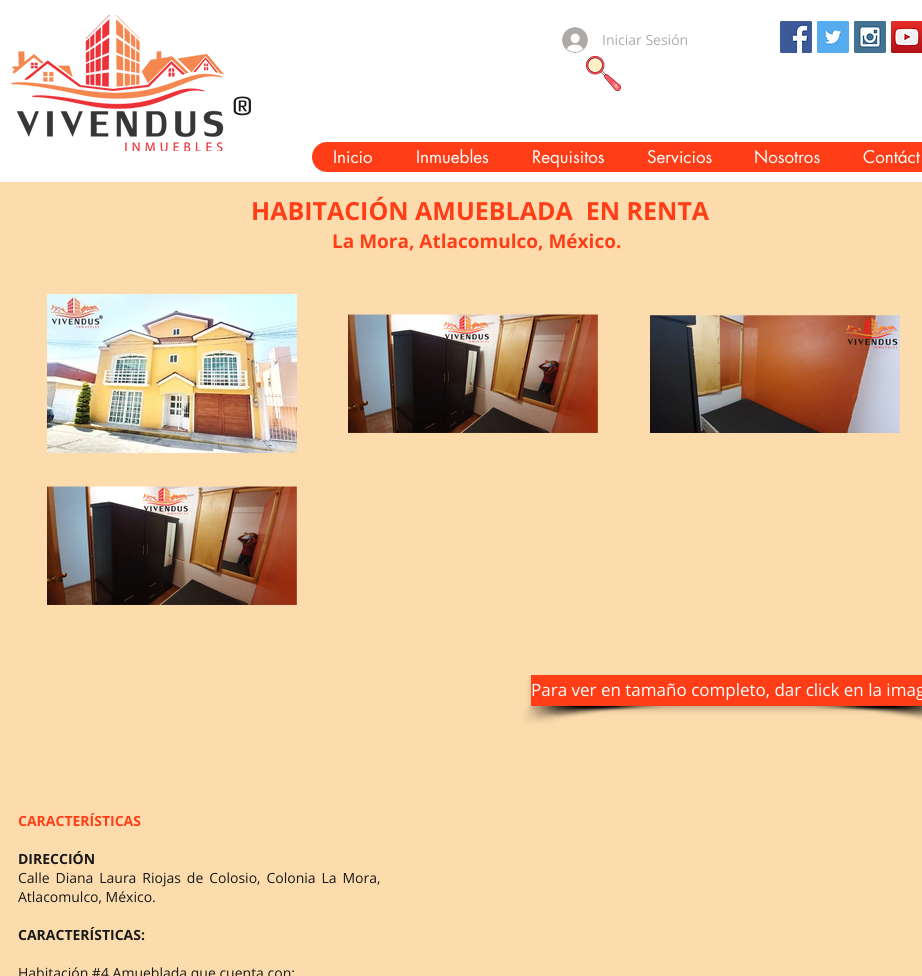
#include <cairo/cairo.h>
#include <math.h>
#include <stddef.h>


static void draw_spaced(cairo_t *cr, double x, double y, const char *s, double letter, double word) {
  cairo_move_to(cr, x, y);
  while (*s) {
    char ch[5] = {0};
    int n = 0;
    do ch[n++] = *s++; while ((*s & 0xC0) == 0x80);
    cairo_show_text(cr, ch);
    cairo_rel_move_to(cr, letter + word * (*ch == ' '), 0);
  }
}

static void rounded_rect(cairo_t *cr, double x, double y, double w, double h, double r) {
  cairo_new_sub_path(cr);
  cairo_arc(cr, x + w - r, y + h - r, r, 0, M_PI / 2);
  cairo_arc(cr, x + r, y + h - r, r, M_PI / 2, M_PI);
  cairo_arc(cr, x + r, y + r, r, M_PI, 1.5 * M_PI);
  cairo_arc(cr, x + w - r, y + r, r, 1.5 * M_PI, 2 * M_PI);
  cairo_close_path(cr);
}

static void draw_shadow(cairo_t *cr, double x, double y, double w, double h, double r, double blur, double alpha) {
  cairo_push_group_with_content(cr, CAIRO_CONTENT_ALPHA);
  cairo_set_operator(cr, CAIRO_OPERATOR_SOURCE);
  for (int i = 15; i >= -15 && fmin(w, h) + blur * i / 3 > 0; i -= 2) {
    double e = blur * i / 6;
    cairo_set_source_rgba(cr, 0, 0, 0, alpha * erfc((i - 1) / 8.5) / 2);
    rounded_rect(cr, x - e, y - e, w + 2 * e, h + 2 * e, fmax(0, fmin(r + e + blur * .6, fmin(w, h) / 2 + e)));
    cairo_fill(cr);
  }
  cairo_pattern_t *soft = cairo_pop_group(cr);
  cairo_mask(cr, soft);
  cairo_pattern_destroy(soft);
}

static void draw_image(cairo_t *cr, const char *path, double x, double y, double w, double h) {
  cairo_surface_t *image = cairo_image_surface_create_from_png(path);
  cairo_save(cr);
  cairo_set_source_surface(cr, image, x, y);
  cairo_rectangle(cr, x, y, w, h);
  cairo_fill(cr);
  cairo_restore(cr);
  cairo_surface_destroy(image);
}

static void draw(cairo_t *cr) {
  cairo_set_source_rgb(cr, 252 / 255.0, 220 / 255.0, 173 / 255.0);
  cairo_paint(cr);
  cairo_set_source_rgb(cr, 1, 1, 1);
  cairo_rectangle(cr, 0, 0, 922, 182);
  cairo_fill(cr);
  draw_image(cr, "images/1.png", 562, 27, 26, 26);
  draw_image(cr, "images/2.png", 780, 21, 32, 32);
  draw_image(cr, "images/3.png", 817, 21, 32, 32);
  draw_image(cr, "images/4.png", 854, 21, 32, 32);
  draw_image(cr, "images/5.png", 891, 21, 31, 32);
  draw_image(cr, "images/6.png", 586, 56, 35, 35);
  draw_image(cr, "images/7.png", 11, 15, 213, 136);
  cairo_set_source_rgb(cr, 1, 62 / 255.0, 23 / 255.0);
  rounded_rect(cr, 312, 142, 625, 30, 15);
  cairo_fill(cr);
  draw_image(cr, "images/8.png", 47, 294, 250, 159);
  draw_image(cr, "images/9.png", 348, 314, 250, 119);
  draw_image(cr, "images/10.png", 650, 315, 250, 118);
  draw_image(cr, "images/9.png", 47, 486, 250, 119);
  draw_image(cr, "images/11.png", 522, 706, 154, 18);
  draw_image(cr, "images/12.png", 800, 706, 122, 15);
  cairo_set_source_rgb(cr, 0, 0, 0);
  draw_shadow(cr, 531, 679, 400, 31, 0, 3, 0.2);
  cairo_set_source_rgb(cr, 1, 62 / 255.0, 23 / 255.0);
  cairo_rectangle(cr, 531, 675, 391, 31);
  cairo_fill(cr);
  cairo_select_font_face(cr, "Open Sans", CAIRO_FONT_SLANT_NORMAL, CAIRO_FONT_WEIGHT_NORMAL);
  cairo_set_font_size(cr, 14);
  cairo_set_source_rgb(cr, 174 / 255.0, 170 / 255.0, 168 / 255.0);
  cairo_move_to(cr, 602, 45);
  cairo_show_text(cr, "Iniciar Sesión");
  cairo_select_font_face(cr, "Play", CAIRO_FONT_SLANT_NORMAL, CAIRO_FONT_WEIGHT_NORMAL);
  cairo_set_font_size(cr, 28);
  cairo_set_source_rgb(cr, 24 / 255.0, 25 / 255.0, 25 / 255.0);
  cairo_move_to(cr, 232, 115);
  cairo_show_text(cr, "®");
  cairo_select_font_face(cr, "futura", CAIRO_FONT_SLANT_NORMAL, CAIRO_FONT_WEIGHT_NORMAL);
  cairo_set_font_size(cr, 17);
  cairo_set_source_rgb(cr, 1, 1, 1);
  cairo_move_to(cr, 333, 163);
  cairo_show_text(cr, "Inicio");
  cairo_move_to(cr, 416, 163);
  cairo_show_text(cr, "Inmuebles");
  cairo_move_to(cr, 532, 163);
  cairo_show_text(cr, "Requisitos");
  cairo_move_to(cr, 647, 163);
  cairo_show_text(cr, "Servicios");
  cairo_move_to(cr, 754, 163);
  cairo_show_text(cr, "Nosotros");
  cairo_move_to(cr, 863, 163);
  cairo_show_text(cr, "Contáct");
  cairo_select_font_face(cr, "Open Sans", CAIRO_FONT_SLANT_NORMAL, CAIRO_FONT_WEIGHT_BOLD);
  cairo_set_font_size(cr, 25);
  cairo_set_source_rgb(cr, 1, 62 / 255.0, 23 / 255.0);
  cairo_move_to(cr, 251, 220);
  cairo_show_text(cr, "HABITACIÓN AMUEBLADA  EN RENTA");
  cairo_set_font_size(cr, 19);
  cairo_move_to(cr, 332, 248);
  cairo_show_text(cr, "La Mora, Atlacomulco, México.");
  cairo_select_font_face(cr, "Open Sans", CAIRO_FONT_SLANT_NORMAL, CAIRO_FONT_WEIGHT_NORMAL);
  cairo_set_font_size(cr, 17);
  cairo_set_source_rgb(cr, 1, 1, 1);
  cairo_move_to(cr, 531, 696);
  cairo_show_text(cr, "Para ver en tamaño completo, dar click en la imag");
  cairo_select_font_face(cr, "Open Sans", CAIRO_FONT_SLANT_NORMAL, CAIRO_FONT_WEIGHT_BOLD);
  cairo_set_font_size(cr, 14);
  cairo_set_source_rgb(cr, 1, 62 / 255.0, 23 / 255.0);
  cairo_move_to(cr, 18, 826);
  cairo_show_text(cr, "CARACTERÍSTICAS");
  cairo_set_source_rgb(cr, 24 / 255.0, 25 / 255.0, 25 / 255.0);
  cairo_move_to(cr, 18, 864);
  cairo_show_text(cr, "DIRECCIÓN");
  cairo_select_font_face(cr, "Open Sans", CAIRO_FONT_SLANT_NORMAL, CAIRO_FONT_WEIGHT_NORMAL);
  draw_spaced(cr, 18, 883, "Calle Diana Laura Riojas de Colosio, Colonia La Mora,", 0, 2.25);
  cairo_move_to(cr, 18, 902);
  cairo_show_text(cr, "Atlacomulco, México.");
  cairo_select_font_face(cr, "Open Sans", CAIRO_FONT_SLANT_NORMAL, CAIRO_FONT_WEIGHT_BOLD);
  cairo_move_to(cr, 18, 940);
  cairo_show_text(cr, "CARACTERÍSTICAS:");
  cairo_select_font_face(cr, "Open Sans", CAIRO_FONT_SLANT_NORMAL, CAIRO_FONT_WEIGHT_NORMAL);
  cairo_move_to(cr, 18, 978);
  cairo_show_text(cr, "Habitación #4 Amueblada que cuenta con:");
}

int main(void) {
  cairo_surface_t *surface = cairo_image_surface_create(CAIRO_FORMAT_RGB24, 922, 976);
  cairo_t *cr = cairo_create(surface);
  cairo_font_options_t *options = cairo_font_options_create();
  cairo_font_options_set_hint_metrics(options, CAIRO_HINT_METRICS_OFF);
  cairo_font_options_set_hint_style(options, CAIRO_HINT_STYLE_NONE);
  cairo_set_font_options(cr, options);
  cairo_set_miter_limit(cr, 4);
  draw(cr);
  cairo_surface_write_to_png(surface, "out.png");
  cairo_font_options_destroy(options);
  cairo_destroy(cr);
  cairo_surface_destroy(surface);
  return 0;
}
